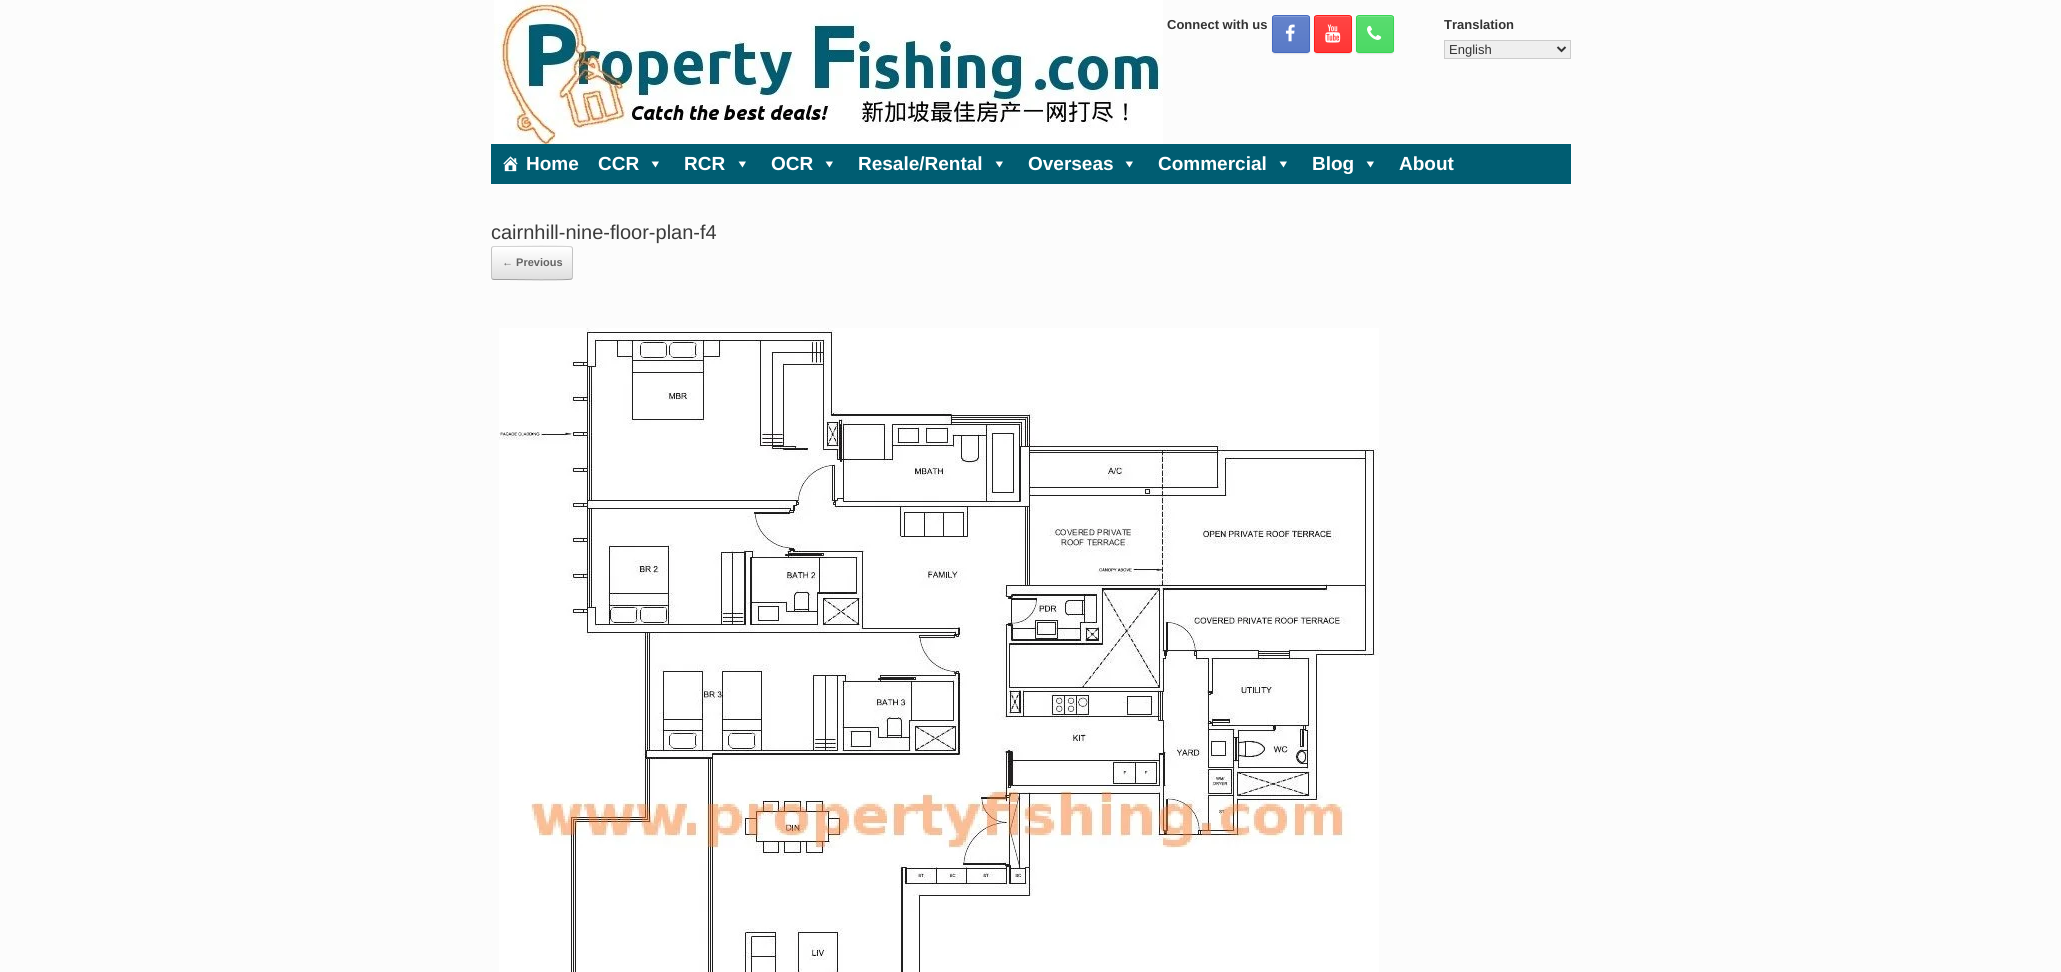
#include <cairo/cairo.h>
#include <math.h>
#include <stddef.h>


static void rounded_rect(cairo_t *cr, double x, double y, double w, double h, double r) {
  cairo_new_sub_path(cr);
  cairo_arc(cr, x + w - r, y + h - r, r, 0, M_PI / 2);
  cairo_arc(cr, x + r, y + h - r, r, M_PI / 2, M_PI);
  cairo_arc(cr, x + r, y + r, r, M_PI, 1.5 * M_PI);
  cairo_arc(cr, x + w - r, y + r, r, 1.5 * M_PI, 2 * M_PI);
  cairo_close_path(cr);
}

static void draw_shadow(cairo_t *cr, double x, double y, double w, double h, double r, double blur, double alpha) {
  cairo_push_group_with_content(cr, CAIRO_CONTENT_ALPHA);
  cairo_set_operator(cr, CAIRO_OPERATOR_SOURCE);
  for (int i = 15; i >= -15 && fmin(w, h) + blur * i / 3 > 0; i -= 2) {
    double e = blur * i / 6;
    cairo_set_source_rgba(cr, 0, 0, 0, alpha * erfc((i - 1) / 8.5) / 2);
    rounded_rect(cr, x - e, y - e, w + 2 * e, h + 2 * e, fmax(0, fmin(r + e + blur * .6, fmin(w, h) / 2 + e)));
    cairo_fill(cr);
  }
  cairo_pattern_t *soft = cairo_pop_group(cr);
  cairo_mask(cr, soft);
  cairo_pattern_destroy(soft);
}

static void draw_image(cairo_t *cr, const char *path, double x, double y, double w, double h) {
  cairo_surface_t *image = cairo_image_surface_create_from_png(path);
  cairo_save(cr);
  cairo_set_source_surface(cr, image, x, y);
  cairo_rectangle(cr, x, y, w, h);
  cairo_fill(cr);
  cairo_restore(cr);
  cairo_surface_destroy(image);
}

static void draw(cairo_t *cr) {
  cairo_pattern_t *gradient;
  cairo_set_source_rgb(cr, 252 / 255.0, 252 / 255.0, 252 / 255.0);
  cairo_paint(cr);
  draw_image(cr, "images/1.png", 494, 0, 669, 144);
  cairo_set_source_rgb(cr, 0, 0, 0);
  draw_shadow(cr, 1272, 16, 38, 38, 3, 0.5, 0.1);
  cairo_save(cr);
  rounded_rect(cr, 1272, 15, 38, 38, 3);
  cairo_clip(cr);
  gradient = cairo_pattern_create_linear(1291, 52, 1291, 16);
  cairo_pattern_add_color_stop_rgba(gradient, 0, 89 / 255.0, 122 / 255.0, 199 / 255.0, 1);
  cairo_pattern_add_color_stop_rgba(gradient, 1, 100 / 255.0, 131 / 255.0, 203 / 255.0, 1);
  cairo_set_source(cr, gradient);
  cairo_pattern_destroy(gradient);
  cairo_rectangle(cr, 1272, 16, 38, 36);
  cairo_fill(cr);
  cairo_restore(cr);
  cairo_set_source_rgb(cr, 131 / 255.0, 156 / 255.0, 213 / 255.0);
  cairo_new_path(cr);
  cairo_move_to(cr, 1275, 17);
  cairo_line_to(cr, 1307, 17);
  cairo_curve_to(cr, 1308, 17, 1309, 18, 1309, 19);
  cairo_curve_to(cr, 1309, 14.5, 1305.5, 16, 1301.5, 16);
  cairo_line_to(cr, 1280.5, 16);
  cairo_curve_to(cr, 1276.5, 16, 1273, 14.5, 1273, 19);
  cairo_curve_to(cr, 1273, 18, 1274, 17, 1275, 17);
  cairo_close_path(cr);
  cairo_fill(cr);
  rounded_rect(cr, 1272.5, 15.5, 37, 37, 2.5);
  cairo_set_source_rgb(cr, 70 / 255.0, 107 / 255.0, 193 / 255.0);
  cairo_set_line_width(cr, 1);
  cairo_stroke(cr);
  draw_image(cr, "images/2.png", 1285, 24, 10, 18);
  cairo_set_source_rgb(cr, 0, 0, 0);
  draw_shadow(cr, 1314, 16, 38, 38, 3, 0.5, 0.1);
  cairo_save(cr);
  rounded_rect(cr, 1314, 15, 38, 38, 3);
  cairo_clip(cr);
  gradient = cairo_pattern_create_linear(1333, 52, 1333, 16);
  cairo_pattern_add_color_stop_rgba(gradient, 0, 1, 54 / 255.0, 53 / 255.0, 1);
  cairo_pattern_add_color_stop_rgba(gradient, 1, 1, 69 / 255.0, 68 / 255.0, 1);
  cairo_set_source(cr, gradient);
  cairo_pattern_destroy(gradient);
  cairo_rectangle(cr, 1314, 16, 38, 36);
  cairo_fill(cr);
  cairo_restore(cr);
  cairo_set_source_rgb(cr, 1, 106 / 255.0, 105 / 255.0);
  cairo_new_path(cr);
  cairo_move_to(cr, 1317, 17);
  cairo_line_to(cr, 1349, 17);
  cairo_curve_to(cr, 1350, 17, 1351, 18, 1351, 19);
  cairo_curve_to(cr, 1351, 14.5, 1347.5, 16, 1343.5, 16);
  cairo_line_to(cr, 1322.5, 16);
  cairo_curve_to(cr, 1318.5, 16, 1315, 14.5, 1315, 19);
  cairo_curve_to(cr, 1315, 18, 1316, 17, 1317, 17);
  cairo_close_path(cr);
  cairo_fill(cr);
  rounded_rect(cr, 1314.5, 15.5, 37, 37, 2.5);
  cairo_set_source_rgb(cr, 1, 29 / 255.0, 27 / 255.0);
  cairo_stroke(cr);
  draw_image(cr, "images/3.png", 1325, 24, 16, 19);
  cairo_set_source_rgb(cr, 0, 0, 0);
  draw_shadow(cr, 1356, 16, 38, 38, 3, 0.5, 0.1);
  cairo_save(cr);
  rounded_rect(cr, 1356, 15, 38, 38, 3);
  cairo_clip(cr);
  gradient = cairo_pattern_create_linear(1375, 52, 1375, 16);
  cairo_pattern_add_color_stop_rgba(gradient, 0, 76 / 255.0, 217 / 255.0, 100 / 255.0, 1);
  cairo_pattern_add_color_stop_rgba(gradient, 1, 89 / 255.0, 220 / 255.0, 111 / 255.0, 1);
  cairo_set_source(cr, gradient);
  cairo_pattern_destroy(gradient);
  cairo_rectangle(cr, 1356, 16, 38, 36);
  cairo_fill(cr);
  cairo_restore(cr);
  cairo_set_source_rgb(cr, 122 / 255.0, 227 / 255.0, 140 / 255.0);
  cairo_new_path(cr);
  cairo_move_to(cr, 1359, 17);
  cairo_line_to(cr, 1391, 17);
  cairo_curve_to(cr, 1392, 17, 1393, 18, 1393, 19);
  cairo_curve_to(cr, 1393, 14.5, 1389.5, 16, 1385.5, 16);
  cairo_line_to(cr, 1364.5, 16);
  cairo_curve_to(cr, 1360.5, 16, 1357, 14.5, 1357, 19);
  cairo_curve_to(cr, 1357, 18, 1358, 17, 1359, 17);
  cairo_close_path(cr);
  cairo_fill(cr);
  rounded_rect(cr, 1356.5, 15.5, 37, 37, 2.5);
  cairo_set_source_rgb(cr, 55 / 255.0, 213 / 255.0, 82 / 255.0);
  cairo_stroke(cr);
  draw_image(cr, "images/4.png", 1367, 25, 15, 15);
  cairo_set_source_rgb(cr, 239 / 255.0, 239 / 255.0, 239 / 255.0);
  cairo_rectangle(cr, 1444.5, 40.5, 126, 18);
  cairo_fill_preserve(cr);
  cairo_set_source_rgb(cr, 204 / 255.0, 204 / 255.0, 204 / 255.0);
  cairo_stroke(cr);
  cairo_new_path(cr);
  cairo_move_to(cr, 1557.5, 47);
  cairo_line_to(cr, 1561.5, 51);
  cairo_line_to(cr, 1565.5, 47);
  cairo_set_source_rgb(cr, 51 / 255.0, 51 / 255.0, 51 / 255.0);
  cairo_set_line_width(cr, 2);
  cairo_stroke(cr);
  cairo_set_source_rgb(cr, 0, 93 / 255.0, 114 / 255.0);
  cairo_rectangle(cr, 491, 144, 1080, 40);
  cairo_fill(cr);
  draw_image(cr, "images/5.png", 503, 156, 15, 16);
  cairo_set_source_rgb(cr, 1, 1, 1);
  cairo_new_path(cr);
  cairo_move_to(cr, 659, 161.5);
  cairo_line_to(cr, 655.5, 167.5);
  cairo_line_to(cr, 651.5, 161.5);
  cairo_close_path(cr);
  cairo_fill(cr);
  cairo_new_path(cr);
  cairo_move_to(cr, 746, 161.5);
  cairo_line_to(cr, 742.5, 167.5);
  cairo_line_to(cr, 738.5, 161.5);
  cairo_close_path(cr);
  cairo_fill(cr);
  cairo_new_path(cr);
  cairo_move_to(cr, 833, 161.5);
  cairo_line_to(cr, 829.5, 167.5);
  cairo_line_to(cr, 825.5, 161.5);
  cairo_close_path(cr);
  cairo_fill(cr);
  cairo_new_path(cr);
  cairo_move_to(cr, 1003, 161.5);
  cairo_line_to(cr, 999.5, 167.5);
  cairo_line_to(cr, 995.5, 161.5);
  cairo_close_path(cr);
  cairo_fill(cr);
  cairo_new_path(cr);
  cairo_move_to(cr, 1133, 161.5);
  cairo_line_to(cr, 1129.5, 167.5);
  cairo_line_to(cr, 1125.5, 161.5);
  cairo_close_path(cr);
  cairo_fill(cr);
  cairo_new_path(cr);
  cairo_move_to(cr, 1287, 161.5);
  cairo_line_to(cr, 1283.5, 167.5);
  cairo_line_to(cr, 1279.5, 161.5);
  cairo_close_path(cr);
  cairo_fill(cr);
  cairo_new_path(cr);
  cairo_move_to(cr, 1374, 161.5);
  cairo_line_to(cr, 1370.5, 167.5);
  cairo_line_to(cr, 1366.5, 161.5);
  cairo_close_path(cr);
  cairo_fill(cr);
  cairo_save(cr);
  rounded_rect(cr, 491, 246, 82, 34, 3);
  cairo_clip(cr);
  gradient = cairo_pattern_create_linear(492, 247, 492, 215);
  cairo_pattern_add_color_stop_rgba(gradient, 0, 223 / 255.0, 223 / 255.0, 223 / 255.0, 1);
  cairo_pattern_add_color_stop_rgba(gradient, 1, 1, 1, 1, 1);
  cairo_set_source(cr, gradient);
  cairo_pattern_destroy(gradient);
  cairo_rectangle(cr, 491, 246, 82, 1);
  cairo_fill(cr);
  gradient = cairo_pattern_create_linear(492, 279, 492, 247);
  cairo_pattern_add_color_stop_rgba(gradient, 0, 223 / 255.0, 223 / 255.0, 223 / 255.0, 1);
  cairo_pattern_add_color_stop_rgba(gradient, 1, 1, 1, 1, 1);
  cairo_set_source(cr, gradient);
  cairo_pattern_destroy(gradient);
  cairo_rectangle(cr, 491, 247, 82, 32);
  cairo_fill(cr);
  gradient = cairo_pattern_create_linear(492, 311, 492, 279);
  cairo_pattern_add_color_stop_rgba(gradient, 0, 223 / 255.0, 223 / 255.0, 223 / 255.0, 1);
  cairo_pattern_add_color_stop_rgba(gradient, 1, 1, 1, 1, 1);
  cairo_set_source(cr, gradient);
  cairo_pattern_destroy(gradient);
  cairo_rectangle(cr, 491, 279, 82, 1);
  cairo_fill(cr);
  cairo_restore(cr);
  cairo_new_path(cr);
  cairo_move_to(cr, 492, 247);
  cairo_line_to(cr, 494, 246.5);
  cairo_line_to(cr, 506.5, 246.5);
  cairo_curve_to(cr, 513.5, 246.5, 569.5, 245.5, 571.5, 247);
  cairo_line_to(cr, 572, 247);
  cairo_set_source_rgb(cr, 210 / 255.0, 210 / 255.0, 210 / 255.0);
  cairo_set_line_width(cr, 1);
  cairo_stroke(cr);
  cairo_new_path(cr);
  cairo_move_to(cr, 572, 247);
  cairo_curve_to(cr, 572, 247.5, 572.5, 248.5, 572.5, 249);
  cairo_line_to(cr, 572.5, 277);
  cairo_curve_to(cr, 572.5, 277.5, 572, 278.5, 572, 279);
  cairo_set_source_rgb(cr, 195 / 255.0, 195 / 255.0, 195 / 255.0);
  cairo_stroke(cr);
  cairo_new_path(cr);
  cairo_move_to(cr, 572, 279);
  cairo_line_to(cr, 571.5, 279);
  cairo_curve_to(cr, 569.5, 280.5, 513.5, 279.5, 506.5, 279.5);
  cairo_line_to(cr, 494, 279.5);
  cairo_line_to(cr, 492, 279);
  cairo_set_source_rgb(cr, 159 / 255.0, 159 / 255.0, 159 / 255.0);
  cairo_stroke(cr);
  cairo_new_path(cr);
  cairo_move_to(cr, 492, 279);
  cairo_curve_to(cr, 492, 278.5, 491.5, 277.5, 491.5, 277);
  cairo_line_to(cr, 491.5, 249);
  cairo_curve_to(cr, 491.5, 248.5, 492, 247.5, 492, 247);
  cairo_set_source_rgb(cr, 195 / 255.0, 195 / 255.0, 195 / 255.0);
  cairo_stroke(cr);
  draw_image(cr, "images/6.png", 499, 328, 880, 644);
  cairo_select_font_face(cr, "Liberation Sans", CAIRO_FONT_SLANT_NORMAL, CAIRO_FONT_WEIGHT_BOLD);
  cairo_set_font_size(cr, 13);
  cairo_set_source_rgb(cr, 51 / 255.0, 51 / 255.0, 51 / 255.0);
  cairo_move_to(cr, 1167, 29);
  cairo_show_text(cr, "Connect with us");
  cairo_move_to(cr, 1444, 29);
  cairo_show_text(cr, "Translation");
  cairo_select_font_face(cr, "Liberation Sans", CAIRO_FONT_SLANT_NORMAL, CAIRO_FONT_WEIGHT_NORMAL);
  cairo_move_to(cr, 1449, 54);
  cairo_show_text(cr, "English");
  cairo_select_font_face(cr, "Liberation Sans", CAIRO_FONT_SLANT_NORMAL, CAIRO_FONT_WEIGHT_BOLD);
  cairo_set_font_size(cr, 19);
  cairo_set_source_rgb(cr, 1, 1, 1);
  cairo_move_to(cr, 526, 170);
  cairo_show_text(cr, "Home");
  cairo_move_to(cr, 598, 170);
  cairo_show_text(cr, "CCR");
  cairo_move_to(cr, 684, 170);
  cairo_show_text(cr, "RCR");
  cairo_move_to(cr, 771, 170);
  cairo_show_text(cr, "OCR");
  cairo_move_to(cr, 858, 170);
  cairo_show_text(cr, "Resale/Rental");
  cairo_move_to(cr, 1028, 170);
  cairo_show_text(cr, "Overseas");
  cairo_move_to(cr, 1158, 170);
  cairo_show_text(cr, "Commercial");
  cairo_move_to(cr, 1312, 170);
  cairo_show_text(cr, "Blog");
  cairo_move_to(cr, 1399, 170);
  cairo_show_text(cr, "About");
  cairo_select_font_face(cr, "Liberation Sans", CAIRO_FONT_SLANT_NORMAL, CAIRO_FONT_WEIGHT_NORMAL);
  cairo_set_font_size(cr, 20);
  cairo_set_source_rgb(cr, 59 / 255.0, 59 / 255.0, 59 / 255.0);
  cairo_move_to(cr, 491, 239);
  cairo_show_text(cr, "cairnhill-nine-floor-plan-f4");
  cairo_select_font_face(cr, "Liberation Sans", CAIRO_FONT_SLANT_NORMAL, CAIRO_FONT_WEIGHT_BOLD);
  cairo_set_font_size(cr, 11);
  cairo_set_source_rgb(cr, 100 / 255.0, 100 / 255.0, 100 / 255.0);
  cairo_move_to(cr, 502, 266);
  cairo_show_text(cr, "← Previous");
}

int main(void) {
  cairo_surface_t *surface = cairo_image_surface_create(CAIRO_FORMAT_RGB24, 2061, 972);
  cairo_t *cr = cairo_create(surface);
  cairo_font_options_t *options = cairo_font_options_create();
  cairo_font_options_set_hint_metrics(options, CAIRO_HINT_METRICS_OFF);
  cairo_font_options_set_hint_style(options, CAIRO_HINT_STYLE_NONE);
  cairo_set_font_options(cr, options);
  cairo_set_miter_limit(cr, 4);
  draw(cr);
  cairo_surface_write_to_png(surface, "out.png");
  cairo_font_options_destroy(options);
  cairo_destroy(cr);
  cairo_surface_destroy(surface);
  return 0;
}
